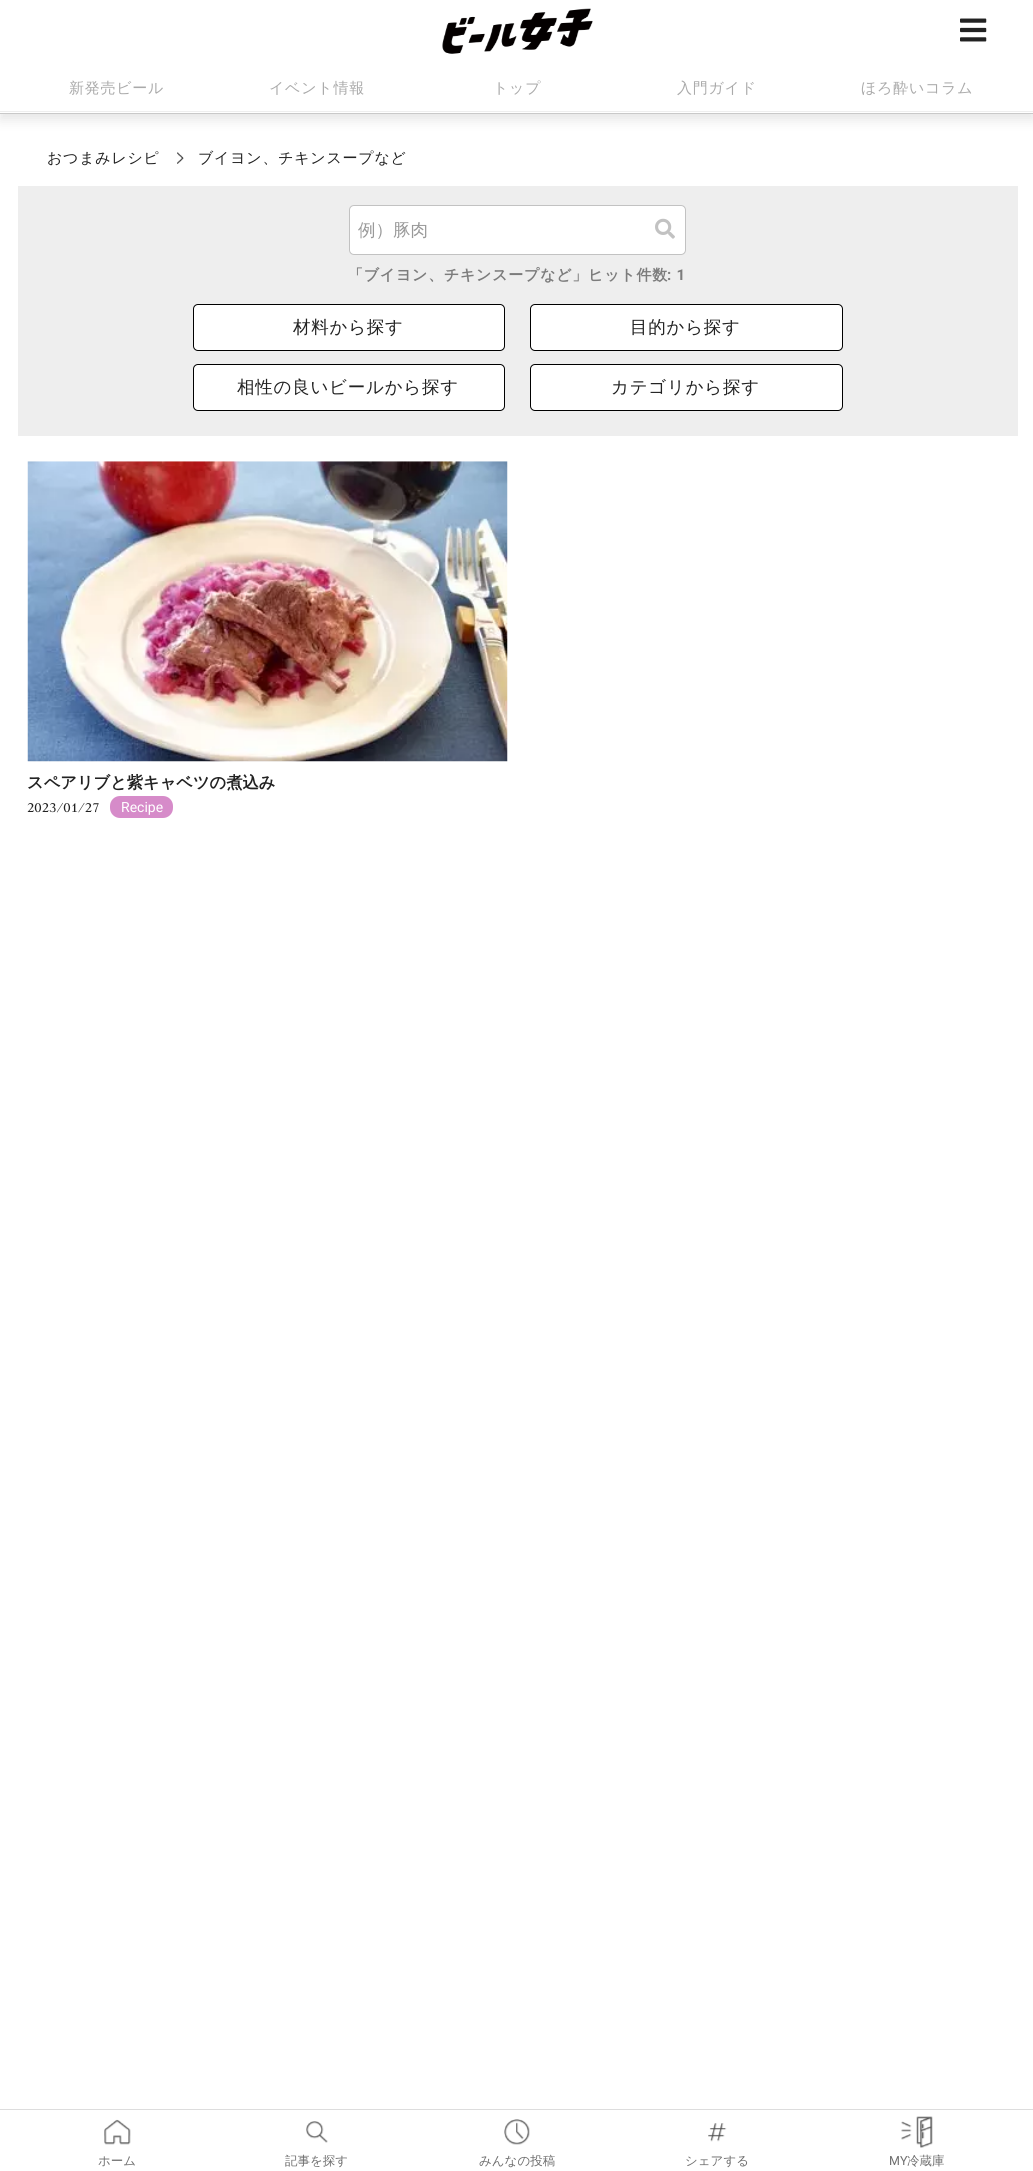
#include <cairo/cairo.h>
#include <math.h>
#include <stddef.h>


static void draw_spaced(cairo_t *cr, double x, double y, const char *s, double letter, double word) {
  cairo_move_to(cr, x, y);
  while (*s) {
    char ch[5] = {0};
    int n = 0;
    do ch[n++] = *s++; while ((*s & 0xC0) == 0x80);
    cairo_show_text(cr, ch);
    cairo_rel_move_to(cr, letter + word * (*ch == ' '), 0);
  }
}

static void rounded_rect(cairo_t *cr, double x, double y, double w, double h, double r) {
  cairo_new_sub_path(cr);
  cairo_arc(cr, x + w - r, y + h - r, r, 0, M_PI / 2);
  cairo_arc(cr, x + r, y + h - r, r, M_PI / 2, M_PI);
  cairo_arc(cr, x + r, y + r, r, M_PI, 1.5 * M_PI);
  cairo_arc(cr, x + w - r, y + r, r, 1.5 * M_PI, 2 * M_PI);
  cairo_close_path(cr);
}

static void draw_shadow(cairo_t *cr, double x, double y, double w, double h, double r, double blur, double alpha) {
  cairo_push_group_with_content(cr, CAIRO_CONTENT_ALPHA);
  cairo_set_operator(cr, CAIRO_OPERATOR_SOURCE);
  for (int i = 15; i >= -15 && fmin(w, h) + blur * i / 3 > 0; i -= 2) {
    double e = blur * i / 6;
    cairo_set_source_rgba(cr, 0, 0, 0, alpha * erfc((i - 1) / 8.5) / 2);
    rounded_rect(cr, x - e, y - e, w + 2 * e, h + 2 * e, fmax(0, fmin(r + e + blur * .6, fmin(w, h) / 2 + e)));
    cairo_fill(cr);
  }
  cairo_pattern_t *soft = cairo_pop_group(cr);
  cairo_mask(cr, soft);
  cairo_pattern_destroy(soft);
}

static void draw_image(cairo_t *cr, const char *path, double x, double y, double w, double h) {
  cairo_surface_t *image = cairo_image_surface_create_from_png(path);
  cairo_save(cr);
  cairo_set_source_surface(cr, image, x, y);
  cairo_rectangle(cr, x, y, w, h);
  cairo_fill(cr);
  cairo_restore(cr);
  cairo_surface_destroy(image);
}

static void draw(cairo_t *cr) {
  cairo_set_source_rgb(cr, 1, 1, 1);
  cairo_paint(cr);
  cairo_set_source_rgb(cr, 0, 0, 0);
  draw_shadow(cr, 0, 6, 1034, 114, 0, 6, 0.1);
  cairo_set_source_rgb(cr, 1, 1, 1);
  cairo_rectangle(cr, 0, 0, 1033, 113);
  cairo_fill(cr);
  cairo_set_source_rgb(cr, 201 / 255.0, 201 / 255.0, 201 / 255.0);
  cairo_rectangle(cr, 0, 113, 1033, 1);
  cairo_fill(cr);
  draw_image(cr, "images/1.png", 442, 8, 151, 46);
  draw_image(cr, "images/2.png", 960, 18, 27, 24);
  cairo_set_source_rgb(cr, 238 / 255.0, 238 / 255.0, 238 / 255.0);
  cairo_rectangle(cr, 0, 111, 1033, 1);
  cairo_fill(cr);
  draw_image(cr, "images/3.png", 177, 152, 7, 12);
  cairo_rectangle(cr, 18, 186, 1000, 250);
  cairo_fill(cr);
  cairo_set_source_rgb(cr, 1, 1, 1);
  rounded_rect(cr, 349.5, 205.5, 336, 49, 4.5);
  cairo_fill_preserve(cr);
  cairo_set_source_rgb(cr, 194 / 255.0, 194 / 255.0, 194 / 255.0);
  cairo_set_line_width(cr, 1);
  cairo_stroke(cr);
  draw_image(cr, "images/4.png", 655, 218, 20, 21);
  cairo_set_source_rgb(cr, 1, 1, 1);
  rounded_rect(cr, 193.5, 304.5, 311, 46, 4.5);
  cairo_fill_preserve(cr);
  cairo_set_source_rgb(cr, 0, 0, 0);
  cairo_stroke(cr);
  cairo_set_source_rgb(cr, 1, 1, 1);
  rounded_rect(cr, 530.5, 304.5, 312, 46, 4.5);
  cairo_fill_preserve(cr);
  cairo_set_source_rgb(cr, 0, 0, 0);
  cairo_stroke(cr);
  cairo_set_source_rgb(cr, 1, 1, 1);
  rounded_rect(cr, 193.5, 364.5, 311, 46, 4.5);
  cairo_fill_preserve(cr);
  cairo_set_source_rgb(cr, 0, 0, 0);
  cairo_stroke(cr);
  cairo_set_source_rgb(cr, 1, 1, 1);
  rounded_rect(cr, 530.5, 364.5, 312, 46, 4.5);
  cairo_fill_preserve(cr);
  cairo_set_source_rgb(cr, 0, 0, 0);
  cairo_stroke(cr);
  draw_image(cr, "images/5.png", 27, 461, 481, 301);
  cairo_set_source_rgb(cr, 214 / 255.0, 139 / 255.0, 201 / 255.0);
  rounded_rect(cr, 110, 796, 63, 22, 10);
  cairo_fill(cr);
  cairo_set_source_rgb(cr, 221 / 255.0, 221 / 255.0, 221 / 255.0);
  cairo_rectangle(cr, 0, 2109, 1033, 1);
  cairo_fill(cr);
  draw_image(cr, "images/6.png", 104, 2119, 27, 26);
  draw_image(cr, "images/7.png", 306, 2121, 22, 22);
  draw_image(cr, "images/8.png", 504, 2119, 26, 26);
  draw_image(cr, "images/9.png", 708, 2123, 19, 19);
  draw_image(cr, "images/10.png", 901, 2116, 32, 32);
  cairo_select_font_face(cr, "WenQuanYi Zen Hei Medium", CAIRO_FONT_SLANT_NORMAL, CAIRO_FONT_WEIGHT_NORMAL);
  cairo_set_font_size(cr, 15);
  cairo_set_source_rgb(cr, 170 / 255.0, 170 / 255.0, 170 / 255.0);
  draw_spaced(cr, 69, 93, "新発売ビール", 0.75, 0);
  draw_spaced(cr, 269, 93, "イベント情報", 0.75, 0);
  draw_spaced(cr, 493, 93, "トップ", 0.75, 0);
  draw_spaced(cr, 677, 93, "入門ガイド", 0.75, 0);
  draw_spaced(cr, 861, 93, "ほろ酔いコラム", 0.75, 0);
  cairo_set_source_rgb(cr, 34 / 255.0, 34 / 255.0, 34 / 255.0);
  draw_spaced(cr, 47, 163, "おつまみレシピ", 0.75, 0);
  draw_spaced(cr, 198, 163, "ブイヨン、チキンスープなど", 0.75, 0);
  cairo_set_font_size(cr, 17.5);
  cairo_set_source_rgb(cr, 153 / 255.0, 153 / 255.0, 153 / 255.0);
  cairo_move_to(cr, 358, 236);
  cairo_show_text(cr, "例）豚肉");
  cairo_select_font_face(cr, "WenQuanYi Zen Hei", CAIRO_FONT_SLANT_NORMAL, CAIRO_FONT_WEIGHT_BOLD);
  cairo_set_font_size(cr, 15);
  cairo_set_source_rgb(cr, 124 / 255.0, 124 / 255.0, 124 / 255.0);
  draw_spaced(cr, 348, 280, "「ブイヨン、チキンスープなど」ヒット件数", 0.75, 0);
  cairo_select_font_face(cr, "Roboto", CAIRO_FONT_SLANT_NORMAL, CAIRO_FONT_WEIGHT_BOLD);
  draw_spaced(cr, 667, 280, ": 1", 0.75, 0);
  cairo_select_font_face(cr, "WenQuanYi Zen Hei Medium", CAIRO_FONT_SLANT_NORMAL, CAIRO_FONT_WEIGHT_NORMAL);
  cairo_set_font_size(cr, 17.5);
  cairo_set_source_rgb(cr, 34 / 255.0, 34 / 255.0, 34 / 255.0);
  draw_spaced(cr, 293, 333, "材料から探す", 0.75, 0);
  draw_spaced(cr, 630, 333, "目的から探す", 0.75, 0);
  draw_spaced(cr, 237, 393, "相性の良いビールから探す", 0.75, 0);
  draw_spaced(cr, 611, 393, "カテゴリから探す", 0.75, 0);
  cairo_select_font_face(cr, "WenQuanYi Zen Hei", CAIRO_FONT_SLANT_NORMAL, CAIRO_FONT_WEIGHT_BOLD);
  cairo_set_font_size(cr, 16.25);
  cairo_move_to(cr, 27, 788);
  cairo_show_text(cr, "スペアリブと紫キャベツの煮込み");
  cairo_select_font_face(cr, "Judson", CAIRO_FONT_SLANT_NORMAL, CAIRO_FONT_WEIGHT_NORMAL);
  cairo_set_font_size(cr, 15);
  cairo_move_to(cr, 27, 812);
  cairo_show_text(cr, "2023/01/27");
  cairo_select_font_face(cr, "Roboto", CAIRO_FONT_SLANT_NORMAL, CAIRO_FONT_WEIGHT_NORMAL);
  cairo_set_font_size(cr, 14);
  cairo_set_source_rgb(cr, 1, 1, 1);
  cairo_move_to(cr, 121, 812);
  cairo_show_text(cr, "Recipe");
  cairo_select_font_face(cr, "WenQuanYi Zen Hei Medium", CAIRO_FONT_SLANT_NORMAL, CAIRO_FONT_WEIGHT_NORMAL);
  cairo_set_font_size(cr, 12.5);
  cairo_set_source_rgb(cr, 110 / 255.0, 110 / 255.0, 110 / 255.0);
  cairo_move_to(cr, 98, 2165);
  cairo_show_text(cr, "ホーム");
  cairo_move_to(cr, 285, 2165);
  cairo_show_text(cr, "記事を探す");
  cairo_move_to(cr, 479, 2165);
  cairo_show_text(cr, "みんなの投稿");
  cairo_move_to(cr, 685, 2165);
  cairo_show_text(cr, "シェアする");
  cairo_select_font_face(cr, "Roboto", CAIRO_FONT_SLANT_NORMAL, CAIRO_FONT_WEIGHT_NORMAL);
  cairo_move_to(cr, 889, 2165);
  cairo_show_text(cr, "MY");
  cairo_select_font_face(cr, "WenQuanYi Zen Hei Medium", CAIRO_FONT_SLANT_NORMAL, CAIRO_FONT_WEIGHT_NORMAL);
  cairo_move_to(cr, 907, 2165);
  cairo_show_text(cr, "冷蔵庫");
}

int main(void) {
  cairo_surface_t *surface = cairo_image_surface_create(CAIRO_FORMAT_RGB24, 1033, 2171);
  cairo_t *cr = cairo_create(surface);
  cairo_font_options_t *options = cairo_font_options_create();
  cairo_font_options_set_hint_metrics(options, CAIRO_HINT_METRICS_OFF);
  cairo_font_options_set_hint_style(options, CAIRO_HINT_STYLE_NONE);
  cairo_set_font_options(cr, options);
  cairo_set_miter_limit(cr, 4);
  draw(cr);
  cairo_surface_write_to_png(surface, "out.png");
  cairo_font_options_destroy(options);
  cairo_destroy(cr);
  cairo_surface_destroy(surface);
  return 0;
}
